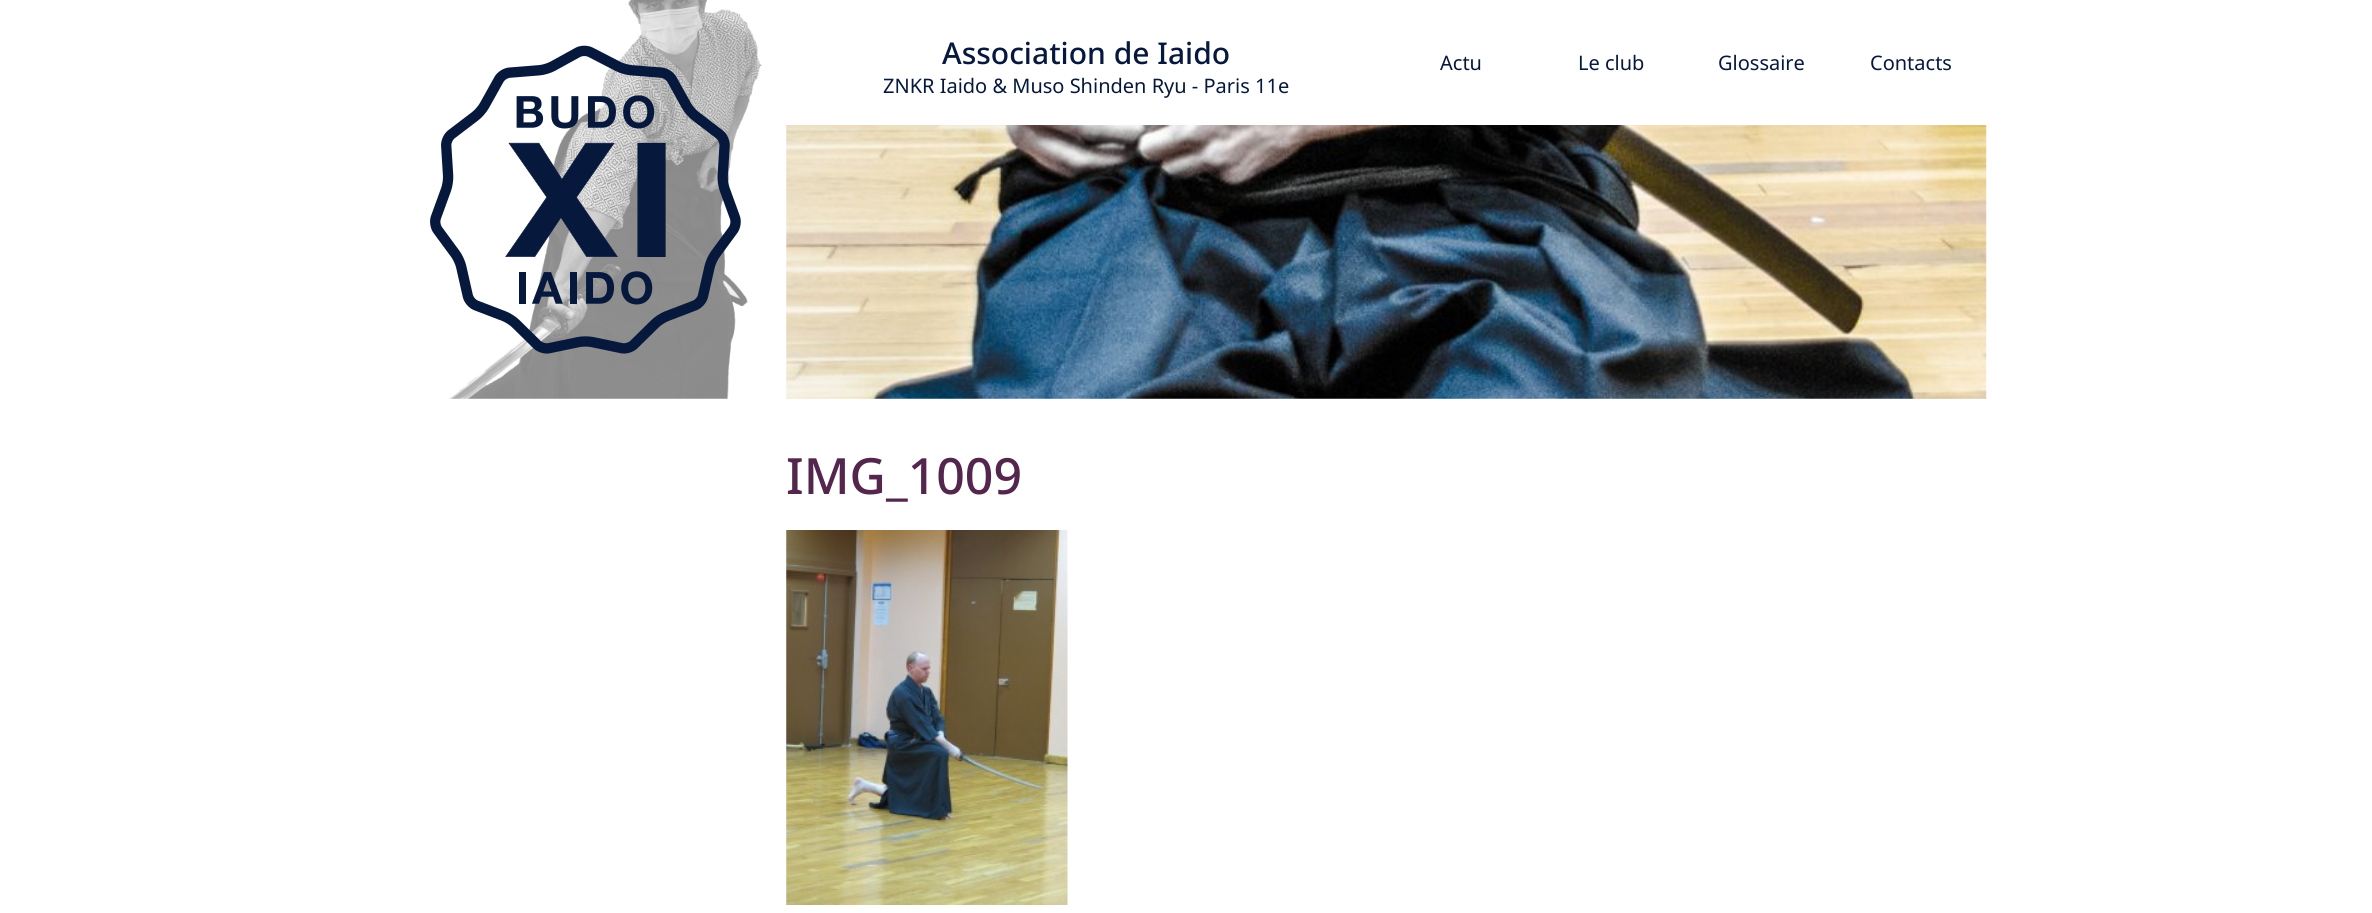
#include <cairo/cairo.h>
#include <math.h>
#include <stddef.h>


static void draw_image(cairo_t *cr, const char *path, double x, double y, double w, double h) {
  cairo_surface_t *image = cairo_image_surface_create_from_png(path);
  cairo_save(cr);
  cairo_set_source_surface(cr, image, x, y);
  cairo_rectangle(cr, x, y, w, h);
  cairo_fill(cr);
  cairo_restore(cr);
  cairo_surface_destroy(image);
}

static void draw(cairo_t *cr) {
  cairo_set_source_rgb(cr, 1, 1, 1);
  cairo_paint(cr);
  draw_image(cr, "images/1.png", 449, 0, 313, 399);
  draw_image(cr, "images/2.png", 430, 45, 311, 309);
  draw_image(cr, "images/3.png", 786, 125, 1201, 274);
  draw_image(cr, "images/4.png", 786, 530, 282, 375);
  cairo_select_font_face(cr, "Noto Sans Medium", CAIRO_FONT_SLANT_NORMAL, CAIRO_FONT_WEIGHT_NORMAL);
  cairo_set_font_size(cr, 30);
  cairo_set_source_rgb(cr, 7 / 255.0, 24 / 255.0, 61 / 255.0);
  cairo_move_to(cr, 942, 64);
  cairo_show_text(cr, "Association de Iaido");
  cairo_select_font_face(cr, "Noto Sans", CAIRO_FONT_SLANT_NORMAL, CAIRO_FONT_WEIGHT_NORMAL);
  cairo_set_font_size(cr, 20);
  cairo_move_to(cr, 883, 93);
  cairo_show_text(cr, "ZNKR Iaido & Muso Shinden Ryu - Paris 11e");
  cairo_move_to(cr, 1440, 70);
  cairo_show_text(cr, "Actu");
  cairo_move_to(cr, 1578, 70);
  cairo_show_text(cr, "Le club");
  cairo_move_to(cr, 1718, 70);
  cairo_show_text(cr, "Glossaire");
  cairo_move_to(cr, 1870, 70);
  cairo_show_text(cr, "Contacts");
  cairo_select_font_face(cr, "Noto Sans Medium", CAIRO_FONT_SLANT_NORMAL, CAIRO_FONT_WEIGHT_NORMAL);
  cairo_set_font_size(cr, 50);
  cairo_set_source_rgb(cr, 85 / 255.0, 38 / 255.0, 77 / 255.0);
  cairo_move_to(cr, 786, 494);
  cairo_show_text(cr, "IMG_1009");
}

int main(void) {
  cairo_surface_t *surface = cairo_image_surface_create(CAIRO_FORMAT_RGB24, 2372, 913);
  cairo_t *cr = cairo_create(surface);
  cairo_font_options_t *options = cairo_font_options_create();
  cairo_font_options_set_hint_metrics(options, CAIRO_HINT_METRICS_OFF);
  cairo_font_options_set_hint_style(options, CAIRO_HINT_STYLE_NONE);
  cairo_set_font_options(cr, options);
  cairo_set_miter_limit(cr, 4);
  draw(cr);
  cairo_surface_write_to_png(surface, "out.png");
  cairo_font_options_destroy(options);
  cairo_destroy(cr);
  cairo_surface_destroy(surface);
  return 0;
}
